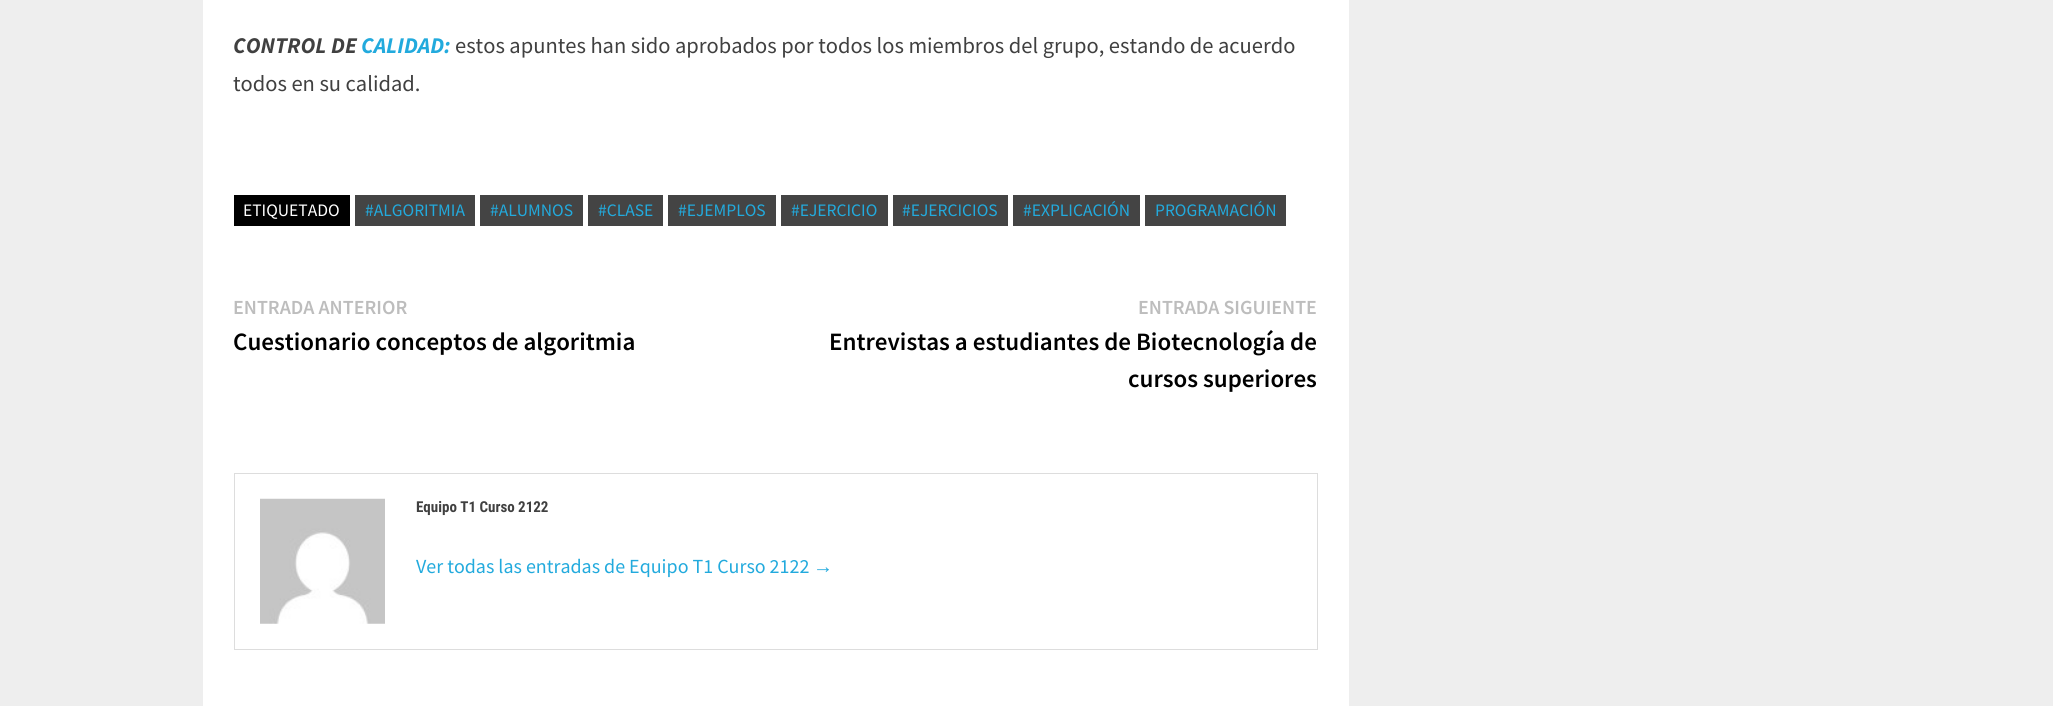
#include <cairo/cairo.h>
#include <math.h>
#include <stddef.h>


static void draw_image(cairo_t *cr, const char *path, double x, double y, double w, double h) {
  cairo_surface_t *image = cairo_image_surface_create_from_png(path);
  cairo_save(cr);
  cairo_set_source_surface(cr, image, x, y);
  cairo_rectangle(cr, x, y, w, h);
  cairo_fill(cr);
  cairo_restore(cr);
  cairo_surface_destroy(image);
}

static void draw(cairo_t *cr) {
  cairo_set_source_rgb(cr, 238 / 255.0, 238 / 255.0, 238 / 255.0);
  cairo_paint(cr);
  cairo_set_source_rgb(cr, 1, 1, 1);
  cairo_rectangle(cr, 203, 0, 1146, 706);
  cairo_fill(cr);
  cairo_set_source_rgb(cr, 0, 0, 0);
  cairo_rectangle(cr, 234, 195, 116, 31);
  cairo_fill(cr);
  cairo_set_source_rgb(cr, 68 / 255.0, 68 / 255.0, 68 / 255.0);
  cairo_rectangle(cr, 355, 195, 120, 31);
  cairo_fill(cr);
  cairo_rectangle(cr, 480, 195, 103, 31);
  cairo_fill(cr);
  cairo_rectangle(cr, 588, 195, 75, 31);
  cairo_fill(cr);
  cairo_rectangle(cr, 668, 195, 108, 31);
  cairo_fill(cr);
  cairo_rectangle(cr, 781, 195, 107, 31);
  cairo_fill(cr);
  cairo_rectangle(cr, 893, 195, 115, 31);
  cairo_fill(cr);
  cairo_rectangle(cr, 1013, 195, 127, 31);
  cairo_fill(cr);
  cairo_rectangle(cr, 1145, 195, 141, 31);
  cairo_fill(cr);
  cairo_rectangle(cr, 234.5, 473.5, 1083, 176);
  cairo_set_source_rgb(cr, 221 / 255.0, 221 / 255.0, 221 / 255.0);
  cairo_set_line_width(cr, 1);
  cairo_stroke(cr);
  draw_image(cr, "images/1.png", 260, 498, 125, 126);
  cairo_select_font_face(cr, "Source Sans Pro", CAIRO_FONT_SLANT_ITALIC, CAIRO_FONT_WEIGHT_BOLD);
  cairo_set_font_size(cr, 22.5);
  cairo_set_source_rgb(cr, 64 / 255.0, 64 / 255.0, 64 / 255.0);
  cairo_move_to(cr, 233, 53);
  cairo_show_text(cr, "CONTROL DE");
  cairo_set_source_rgb(cr, 34 / 255.0, 170 / 255.0, 221 / 255.0);
  cairo_move_to(cr, 361, 53);
  cairo_show_text(cr, "CALIDAD:");
  cairo_select_font_face(cr, "Source Sans Pro", CAIRO_FONT_SLANT_NORMAL, CAIRO_FONT_WEIGHT_NORMAL);
  cairo_set_source_rgb(cr, 64 / 255.0, 64 / 255.0, 64 / 255.0);
  cairo_move_to(cr, 455, 53);
  cairo_show_text(cr, "estos apuntes han sido aprobados por todos los miembros del grupo, estando de acuerdo");
  cairo_move_to(cr, 233, 91);
  cairo_show_text(cr, "todos en su calidad.");
  cairo_set_font_size(cr, 17.5);
  cairo_set_source_rgb(cr, 1, 1, 1);
  cairo_move_to(cr, 243, 216);
  cairo_show_text(cr, "ETIQUETADO");
  cairo_set_source_rgb(cr, 34 / 255.0, 170 / 255.0, 221 / 255.0);
  cairo_move_to(cr, 365, 216);
  cairo_show_text(cr, "#ALGORITMIA");
  cairo_move_to(cr, 490, 216);
  cairo_show_text(cr, "#ALUMNOS");
  cairo_move_to(cr, 598, 216);
  cairo_show_text(cr, "#CLASE");
  cairo_move_to(cr, 678, 216);
  cairo_show_text(cr, "#EJEMPLOS");
  cairo_move_to(cr, 791, 216);
  cairo_show_text(cr, "#EJERCICIO");
  cairo_move_to(cr, 902, 216);
  cairo_show_text(cr, "#EJERCICIOS");
  cairo_move_to(cr, 1023, 216);
  cairo_show_text(cr, "#EXPLICACIÓN");
  cairo_move_to(cr, 1155, 216);
  cairo_show_text(cr, "PROGRAMACIÓN");
  cairo_select_font_face(cr, "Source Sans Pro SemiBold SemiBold", CAIRO_FONT_SLANT_NORMAL, CAIRO_FONT_WEIGHT_NORMAL);
  cairo_set_font_size(cr, 20);
  cairo_set_source_rgb(cr, 189 / 255.0, 189 / 255.0, 189 / 255.0);
  cairo_move_to(cr, 233, 314);
  cairo_show_text(cr, "ENTRADA ANTERIOR");
  cairo_set_font_size(cr, 25);
  cairo_set_source_rgb(cr, 0, 0, 0);
  cairo_move_to(cr, 233, 350);
  cairo_show_text(cr, "Cuestionario conceptos de algoritmia");
  cairo_set_font_size(cr, 20);
  cairo_set_source_rgb(cr, 189 / 255.0, 189 / 255.0, 189 / 255.0);
  cairo_move_to(cr, 1138, 314);
  cairo_show_text(cr, "ENTRADA SIGUIENTE");
  cairo_set_font_size(cr, 25);
  cairo_set_source_rgb(cr, 0, 0, 0);
  cairo_move_to(cr, 829, 350);
  cairo_show_text(cr, "Entrevistas a estudiantes de Biotecnología de");
  cairo_move_to(cr, 1128, 387);
  cairo_show_text(cr, "cursos superiores");
  cairo_select_font_face(cr, "Roboto Condensed", CAIRO_FONT_SLANT_NORMAL, CAIRO_FONT_WEIGHT_BOLD);
  cairo_set_font_size(cr, 15);
  cairo_set_source_rgb(cr, 64 / 255.0, 64 / 255.0, 64 / 255.0);
  cairo_move_to(cr, 416, 512);
  cairo_show_text(cr, "Equipo T1 Curso 2122");
  cairo_select_font_face(cr, "Source Sans Pro", CAIRO_FONT_SLANT_NORMAL, CAIRO_FONT_WEIGHT_NORMAL);
  cairo_set_font_size(cr, 20);
  cairo_set_source_rgb(cr, 34 / 255.0, 170 / 255.0, 221 / 255.0);
  cairo_move_to(cr, 416, 573);
  cairo_show_text(cr, "Ver todas las entradas de Equipo T1 Curso 2122");
  cairo_select_font_face(cr, "Liberation Sans", CAIRO_FONT_SLANT_NORMAL, CAIRO_FONT_WEIGHT_NORMAL);
  cairo_move_to(cr, 813, 573);
  cairo_show_text(cr, "→");
}

int main(void) {
  cairo_surface_t *surface = cairo_image_surface_create(CAIRO_FORMAT_RGB24, 2053, 706);
  cairo_t *cr = cairo_create(surface);
  cairo_font_options_t *options = cairo_font_options_create();
  cairo_font_options_set_hint_metrics(options, CAIRO_HINT_METRICS_OFF);
  cairo_font_options_set_hint_style(options, CAIRO_HINT_STYLE_NONE);
  cairo_set_font_options(cr, options);
  cairo_set_miter_limit(cr, 4);
  draw(cr);
  cairo_surface_write_to_png(surface, "out.png");
  cairo_font_options_destroy(options);
  cairo_destroy(cr);
  cairo_surface_destroy(surface);
  return 0;
}
